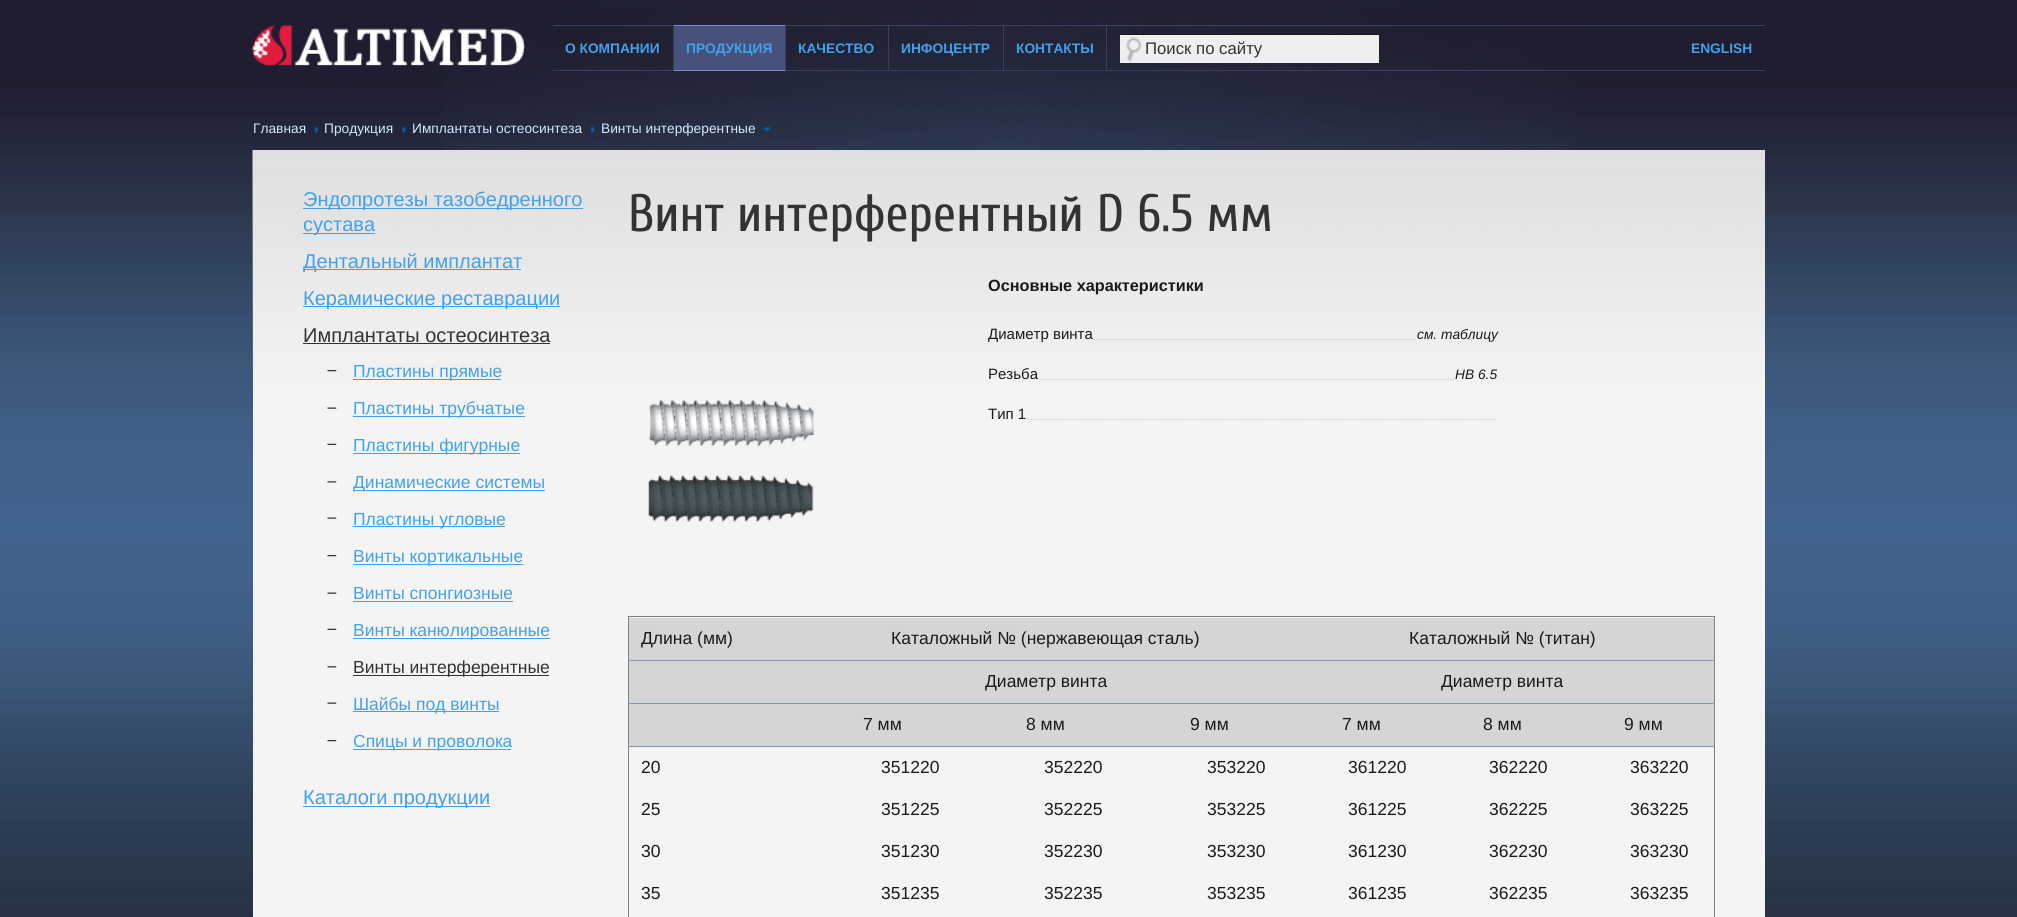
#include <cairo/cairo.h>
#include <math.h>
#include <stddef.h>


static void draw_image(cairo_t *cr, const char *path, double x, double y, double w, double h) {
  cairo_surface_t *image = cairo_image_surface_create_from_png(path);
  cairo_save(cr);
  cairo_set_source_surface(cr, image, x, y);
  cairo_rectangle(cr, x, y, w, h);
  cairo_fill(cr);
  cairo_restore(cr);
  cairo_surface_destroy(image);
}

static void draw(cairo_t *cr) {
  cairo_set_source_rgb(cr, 1, 1, 1);
  cairo_paint(cr);
  draw_image(cr, "images/1.png", 0, 0, 2017, 917);
  draw_image(cr, "images/2.png", 444, 0, 1130, 150);
  draw_image(cr, "images/3.png", 252, 25, 273, 42);
  cairo_set_source_rgb(cr, 57 / 255.0, 61 / 255.0, 94 / 255.0);
  cairo_rectangle(cr, 553, 25, 1212, 1);
  cairo_fill(cr);
  cairo_rectangle(cr, 553, 70, 1212, 1);
  cairo_fill(cr);
  cairo_set_source_rgb(cr, 70 / 255.0, 81 / 255.0, 124 / 255.0);
  cairo_rectangle(cr, 674, 26, 111, 44);
  cairo_fill(cr);
  cairo_set_source_rgb(cr, 115 / 255.0, 142 / 255.0, 209 / 255.0);
  cairo_rectangle(cr, 673, 25, 112, 1);
  cairo_fill(cr);
  cairo_rectangle(cr, 673, 70, 112, 1);
  cairo_fill(cr);
  cairo_set_source_rgb(cr, 57 / 255.0, 61 / 255.0, 94 / 255.0);
  cairo_rectangle(cr, 673, 25, 1, 46);
  cairo_fill(cr);
  cairo_rectangle(cr, 785, 26, 1, 44);
  cairo_fill(cr);
  cairo_rectangle(cr, 888, 26, 1, 44);
  cairo_fill(cr);
  cairo_rectangle(cr, 1003, 26, 1, 44);
  cairo_fill(cr);
  cairo_rectangle(cr, 1106, 26, 1, 44);
  cairo_fill(cr);
  cairo_set_source_rgb(cr, 239 / 255.0, 239 / 255.0, 239 / 255.0);
  cairo_rectangle(cr, 1120, 35, 259, 28);
  cairo_fill(cr);
  draw_image(cr, "images/4.png", 1126, 37, 16, 25);
  cairo_set_source_rgb(cr, 24 / 255.0, 24 / 255.0, 24 / 255.0);
  cairo_rectangle(cr, 1120, 34, 259, 1);
  cairo_fill(cr);
  draw_image(cr, "images/5.png", 314, 126, 5, 8);
  draw_image(cr, "images/6.png", 402, 126, 5, 8);
  draw_image(cr, "images/7.png", 591, 126, 5, 8);
  draw_image(cr, "images/8.png", 762, 127, 10, 5);
  cairo_set_source_rgb(cr, 244 / 255.0, 244 / 255.0, 245 / 255.0);
  cairo_rectangle(cr, 253, 154, 1512, 763);
  cairo_fill(cr);
  draw_image(cr, "images/9.png", 252, 150, 1513, 241);
  cairo_set_source_rgb(cr, 66 / 255.0, 161 / 255.0, 234 / 255.0);
  cairo_rectangle(cr, 303, 208, 280, 1);
  cairo_fill(cr);
  cairo_rectangle(cr, 303, 233, 72, 1);
  cairo_fill(cr);
  cairo_rectangle(cr, 303, 269, 218, 1);
  cairo_fill(cr);
  cairo_rectangle(cr, 303, 306, 257, 1);
  cairo_fill(cr);
  cairo_set_source_rgb(cr, 51 / 255.0, 51 / 255.0, 51 / 255.0);
  cairo_rectangle(cr, 303, 343, 247, 1);
  cairo_fill(cr);
  draw_image(cr, "images/10.png", 327, 370, 10, 2);
  cairo_set_source_rgb(cr, 66 / 255.0, 161 / 255.0, 234 / 255.0);
  cairo_rectangle(cr, 353, 379, 148, 1);
  cairo_fill(cr);
  draw_image(cr, "images/11.png", 327, 407, 10, 2);
  cairo_rectangle(cr, 353, 416, 172, 1);
  cairo_fill(cr);
  draw_image(cr, "images/12.png", 327, 443, 10, 2);
  cairo_rectangle(cr, 353, 453, 167, 1);
  cairo_fill(cr);
  draw_image(cr, "images/13.png", 327, 481, 10, 2);
  cairo_rectangle(cr, 353, 490, 192, 1);
  cairo_fill(cr);
  draw_image(cr, "images/11.png", 327, 517, 10, 2);
  cairo_rectangle(cr, 353, 526, 152, 1);
  cairo_fill(cr);
  draw_image(cr, "images/14.png", 327, 555, 10, 2);
  cairo_rectangle(cr, 353, 564, 170, 1);
  cairo_fill(cr);
  draw_image(cr, "images/11.png", 327, 592, 10, 2);
  cairo_rectangle(cr, 353, 601, 160, 1);
  cairo_fill(cr);
  draw_image(cr, "images/12.png", 327, 628, 10, 2);
  cairo_rectangle(cr, 353, 638, 197, 1);
  cairo_fill(cr);
  draw_image(cr, "images/13.png", 327, 666, 10, 2);
  cairo_set_source_rgb(cr, 51 / 255.0, 51 / 255.0, 51 / 255.0);
  cairo_rectangle(cr, 353, 675, 196, 1);
  cairo_fill(cr);
  draw_image(cr, "images/11.png", 327, 702, 10, 2);
  cairo_set_source_rgb(cr, 66 / 255.0, 161 / 255.0, 234 / 255.0);
  cairo_rectangle(cr, 353, 711, 146, 1);
  cairo_fill(cr);
  draw_image(cr, "images/14.png", 327, 740, 10, 2);
  cairo_rectangle(cr, 353, 749, 158, 1);
  cairo_fill(cr);
  cairo_rectangle(cr, 303, 806, 187, 1);
  cairo_fill(cr);
  cairo_new_path(cr);
  cairo_move_to(cr, 1094, 339.5);
  cairo_line_to(cr, 1415, 339.5);
  cairo_set_source_rgb(cr, 199 / 255.0, 202 / 255.0, 203 / 255.0);
  cairo_set_line_width(cr, 1.2);
  cairo_set_dash(cr, (double[]){1.25, 1.25}, 2, 0);
  cairo_stroke(cr);
  cairo_new_path(cr);
  cairo_move_to(cr, 1040, 379.5);
  cairo_line_to(cr, 1454, 379.5);
  cairo_stroke(cr);
  draw_image(cr, "images/15.png", 648, 399, 166, 123);
  cairo_new_path(cr);
  cairo_move_to(cr, 1027.5, 419.5);
  cairo_line_to(cr, 1497.5, 419.5);
  cairo_stroke(cr);
  cairo_set_source_rgb(cr, 128 / 255.0, 128 / 255.0, 128 / 255.0);
  cairo_rectangle(cr, 628, 616, 1087, 1);
  cairo_fill(cr);
  cairo_rectangle(cr, 1714, 616, 1, 301);
  cairo_fill(cr);
  cairo_rectangle(cr, 628, 616, 1, 301);
  cairo_fill(cr);
  cairo_set_source_rgb(cr, 212 / 255.0, 213 / 255.0, 214 / 255.0);
  cairo_rectangle(cr, 629, 618, 1085, 42);
  cairo_fill(cr);
  cairo_set_source_rgb(cr, 133 / 255.0, 149 / 255.0, 167 / 255.0);
  cairo_rectangle(cr, 628, 660, 1087, 1);
  cairo_fill(cr);
  cairo_set_source_rgb(cr, 212 / 255.0, 213 / 255.0, 214 / 255.0);
  cairo_rectangle(cr, 629, 661, 1085, 42);
  cairo_fill(cr);
  cairo_set_source_rgb(cr, 133 / 255.0, 149 / 255.0, 167 / 255.0);
  cairo_rectangle(cr, 628, 703, 1087, 1);
  cairo_fill(cr);
  cairo_set_source_rgb(cr, 212 / 255.0, 213 / 255.0, 214 / 255.0);
  cairo_rectangle(cr, 629, 704, 1085, 42);
  cairo_fill(cr);
  cairo_set_source_rgb(cr, 133 / 255.0, 149 / 255.0, 167 / 255.0);
  cairo_rectangle(cr, 628, 746, 1087, 1);
  cairo_fill(cr);
  cairo_select_font_face(cr, "Liberation Sans", CAIRO_FONT_SLANT_NORMAL, CAIRO_FONT_WEIGHT_BOLD);
  cairo_set_font_size(cr, 13.75);
  cairo_set_source_rgb(cr, 66 / 255.0, 161 / 255.0, 234 / 255.0);
  cairo_move_to(cr, 565, 53);
  cairo_show_text(cr, "О КОМПАНИИ");
  cairo_move_to(cr, 686, 53);
  cairo_show_text(cr, "ПРОДУКЦИЯ");
  cairo_move_to(cr, 798, 53);
  cairo_show_text(cr, "КАЧЕСТВО");
  cairo_move_to(cr, 901, 53);
  cairo_show_text(cr, "ИНФОЦЕНТР");
  cairo_move_to(cr, 1016, 53);
  cairo_show_text(cr, "КОНТАКТЫ");
  cairo_select_font_face(cr, "Liberation Sans", CAIRO_FONT_SLANT_NORMAL, CAIRO_FONT_WEIGHT_NORMAL);
  cairo_set_font_size(cr, 16.75);
  cairo_set_source_rgb(cr, 51 / 255.0, 51 / 255.0, 51 / 255.0);
  cairo_move_to(cr, 1145, 54);
  cairo_show_text(cr, "Поиск по сайту");
  cairo_select_font_face(cr, "Liberation Sans", CAIRO_FONT_SLANT_NORMAL, CAIRO_FONT_WEIGHT_BOLD);
  cairo_set_font_size(cr, 13.75);
  cairo_set_source_rgb(cr, 66 / 255.0, 161 / 255.0, 234 / 255.0);
  cairo_move_to(cr, 1691, 53);
  cairo_show_text(cr, "ENGLISH");
  cairo_select_font_face(cr, "Liberation Sans", CAIRO_FONT_SLANT_NORMAL, CAIRO_FONT_WEIGHT_NORMAL);
  cairo_set_source_rgb(cr, 209 / 255.0, 232 / 255.0, 1);
  cairo_move_to(cr, 253, 133);
  cairo_show_text(cr, "Главная");
  cairo_move_to(cr, 324, 133);
  cairo_show_text(cr, "Продукция");
  cairo_move_to(cr, 412, 133);
  cairo_show_text(cr, "Имплантаты остеосинтеза");
  cairo_move_to(cr, 601, 133);
  cairo_show_text(cr, "Винты интерферентные");
  cairo_set_font_size(cr, 20);
  cairo_set_source_rgb(cr, 66 / 255.0, 161 / 255.0, 234 / 255.0);
  cairo_move_to(cr, 303, 206);
  cairo_show_text(cr, "Эндопротезы тазобедренного");
  cairo_move_to(cr, 303, 231);
  cairo_show_text(cr, "сустава");
  cairo_move_to(cr, 303, 268);
  cairo_show_text(cr, "Дентальный имплантат");
  cairo_move_to(cr, 303, 305);
  cairo_show_text(cr, "Керамические реставрации");
  cairo_set_source_rgb(cr, 51 / 255.0, 51 / 255.0, 51 / 255.0);
  cairo_move_to(cr, 303, 342);
  cairo_show_text(cr, "Имплантаты остеосинтеза");
  cairo_set_font_size(cr, 17.5);
  cairo_set_source_rgb(cr, 66 / 255.0, 161 / 255.0, 234 / 255.0);
  cairo_move_to(cr, 353, 377);
  cairo_show_text(cr, "Пластины прямые");
  cairo_move_to(cr, 353, 414);
  cairo_show_text(cr, "Пластины трубчатые");
  cairo_move_to(cr, 353, 451);
  cairo_show_text(cr, "Пластины фигурные");
  cairo_move_to(cr, 353, 488);
  cairo_show_text(cr, "Динамические системы");
  cairo_move_to(cr, 353, 525);
  cairo_show_text(cr, "Пластины угловые");
  cairo_move_to(cr, 353, 562);
  cairo_show_text(cr, "Винты кортикальные");
  cairo_move_to(cr, 353, 599);
  cairo_show_text(cr, "Винты спонгиозные");
  cairo_move_to(cr, 353, 636);
  cairo_show_text(cr, "Винты канюлированные");
  cairo_set_source_rgb(cr, 51 / 255.0, 51 / 255.0, 51 / 255.0);
  cairo_move_to(cr, 353, 673);
  cairo_show_text(cr, "Винты интерферентные");
  cairo_set_source_rgb(cr, 66 / 255.0, 161 / 255.0, 234 / 255.0);
  cairo_move_to(cr, 353, 710);
  cairo_show_text(cr, "Шайбы под винты");
  cairo_move_to(cr, 353, 747);
  cairo_show_text(cr, "Спицы и проволока");
  cairo_set_font_size(cr, 20);
  cairo_move_to(cr, 303, 804);
  cairo_show_text(cr, "Каталоги продукции");
  cairo_select_font_face(cr, "Cuprum", CAIRO_FONT_SLANT_NORMAL, CAIRO_FONT_WEIGHT_NORMAL);
  cairo_set_font_size(cr, 52.5);
  cairo_set_source_rgb(cr, 51 / 255.0, 51 / 255.0, 51 / 255.0);
  cairo_move_to(cr, 628, 231);
  cairo_show_text(cr, "Винт интерферентный D 6.5 мм");
  cairo_select_font_face(cr, "Liberation Sans", CAIRO_FONT_SLANT_NORMAL, CAIRO_FONT_WEIGHT_BOLD);
  cairo_set_font_size(cr, 16.25);
  cairo_set_source_rgb(cr, 29 / 255.0, 25 / 255.0, 22 / 255.0);
  cairo_move_to(cr, 988, 291);
  cairo_show_text(cr, "Основные характеристики");
  cairo_select_font_face(cr, "Liberation Sans", CAIRO_FONT_SLANT_NORMAL, CAIRO_FONT_WEIGHT_NORMAL);
  cairo_set_font_size(cr, 15);
  cairo_move_to(cr, 988, 339);
  cairo_show_text(cr, "Диаметр винта");
  cairo_select_font_face(cr, "Liberation Sans", CAIRO_FONT_SLANT_ITALIC, CAIRO_FONT_WEIGHT_NORMAL);
  cairo_set_font_size(cr, 13.75);
  cairo_move_to(cr, 1417, 339);
  cairo_show_text(cr, "см. таблицу");
  cairo_select_font_face(cr, "Liberation Sans", CAIRO_FONT_SLANT_NORMAL, CAIRO_FONT_WEIGHT_NORMAL);
  cairo_set_font_size(cr, 15);
  cairo_move_to(cr, 988, 379);
  cairo_show_text(cr, "Резьба");
  cairo_select_font_face(cr, "Liberation Sans", CAIRO_FONT_SLANT_ITALIC, CAIRO_FONT_WEIGHT_NORMAL);
  cairo_set_font_size(cr, 13.75);
  cairo_move_to(cr, 1455, 379);
  cairo_show_text(cr, "НВ 6.5");
  cairo_select_font_face(cr, "Liberation Sans", CAIRO_FONT_SLANT_NORMAL, CAIRO_FONT_WEIGHT_NORMAL);
  cairo_set_font_size(cr, 15);
  cairo_move_to(cr, 988, 419);
  cairo_show_text(cr, "Тип 1");
  cairo_set_font_size(cr, 17.5);
  cairo_move_to(cr, 641, 644);
  cairo_show_text(cr, "Длина (мм)");
  cairo_move_to(cr, 891, 644);
  cairo_show_text(cr, "Каталожный № (нержавеющая сталь)");
  cairo_move_to(cr, 1409, 644);
  cairo_show_text(cr, "Каталожный № (титан)");
  cairo_move_to(cr, 985, 687);
  cairo_show_text(cr, "Диаметр винта");
  cairo_move_to(cr, 1441, 687);
  cairo_show_text(cr, "Диаметр винта");
  cairo_move_to(cr, 863, 730);
  cairo_show_text(cr, "7 мм");
  cairo_move_to(cr, 1026, 730);
  cairo_show_text(cr, "8 мм");
  cairo_move_to(cr, 1190, 730);
  cairo_show_text(cr, "9 мм");
  cairo_move_to(cr, 1342, 730);
  cairo_show_text(cr, "7 мм");
  cairo_move_to(cr, 1483, 730);
  cairo_show_text(cr, "8 мм");
  cairo_move_to(cr, 1624, 730);
  cairo_show_text(cr, "9 мм");
  cairo_move_to(cr, 641, 773);
  cairo_show_text(cr, "20");
  cairo_move_to(cr, 881, 773);
  cairo_show_text(cr, "351220");
  cairo_move_to(cr, 1044, 773);
  cairo_show_text(cr, "352220");
  cairo_move_to(cr, 1207, 773);
  cairo_show_text(cr, "353220");
  cairo_move_to(cr, 1348, 773);
  cairo_show_text(cr, "361220");
  cairo_move_to(cr, 1489, 773);
  cairo_show_text(cr, "362220");
  cairo_move_to(cr, 1630, 773);
  cairo_show_text(cr, "363220");
  cairo_move_to(cr, 641, 815);
  cairo_show_text(cr, "25");
  cairo_move_to(cr, 881, 815);
  cairo_show_text(cr, "351225");
  cairo_move_to(cr, 1044, 815);
  cairo_show_text(cr, "352225");
  cairo_move_to(cr, 1207, 815);
  cairo_show_text(cr, "353225");
  cairo_move_to(cr, 1348, 815);
  cairo_show_text(cr, "361225");
  cairo_move_to(cr, 1489, 815);
  cairo_show_text(cr, "362225");
  cairo_move_to(cr, 1630, 815);
  cairo_show_text(cr, "363225");
  cairo_move_to(cr, 641, 857);
  cairo_show_text(cr, "30");
  cairo_move_to(cr, 881, 857);
  cairo_show_text(cr, "351230");
  cairo_move_to(cr, 1044, 857);
  cairo_show_text(cr, "352230");
  cairo_move_to(cr, 1207, 857);
  cairo_show_text(cr, "353230");
  cairo_move_to(cr, 1348, 857);
  cairo_show_text(cr, "361230");
  cairo_move_to(cr, 1489, 857);
  cairo_show_text(cr, "362230");
  cairo_move_to(cr, 1630, 857);
  cairo_show_text(cr, "363230");
  cairo_move_to(cr, 641, 899);
  cairo_show_text(cr, "35");
  cairo_move_to(cr, 881, 899);
  cairo_show_text(cr, "351235");
  cairo_move_to(cr, 1044, 899);
  cairo_show_text(cr, "352235");
  cairo_move_to(cr, 1207, 899);
  cairo_show_text(cr, "353235");
  cairo_move_to(cr, 1348, 899);
  cairo_show_text(cr, "361235");
  cairo_move_to(cr, 1489, 899);
  cairo_show_text(cr, "362235");
  cairo_move_to(cr, 1630, 899);
  cairo_show_text(cr, "363235");
}

int main(void) {
  cairo_surface_t *surface = cairo_image_surface_create(CAIRO_FORMAT_RGB24, 2017, 917);
  cairo_t *cr = cairo_create(surface);
  cairo_font_options_t *options = cairo_font_options_create();
  cairo_font_options_set_hint_metrics(options, CAIRO_HINT_METRICS_OFF);
  cairo_font_options_set_hint_style(options, CAIRO_HINT_STYLE_NONE);
  cairo_set_font_options(cr, options);
  cairo_set_miter_limit(cr, 4);
  draw(cr);
  cairo_surface_write_to_png(surface, "out.png");
  cairo_font_options_destroy(options);
  cairo_destroy(cr);
  cairo_surface_destroy(surface);
  return 0;
}
